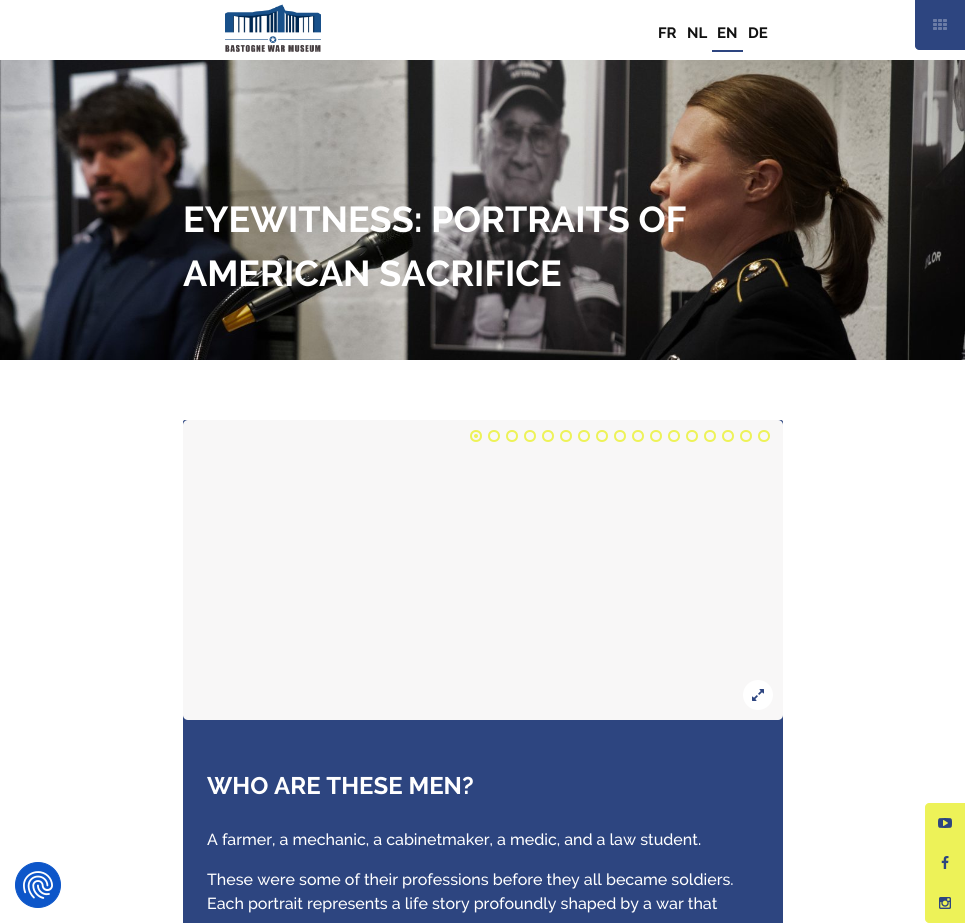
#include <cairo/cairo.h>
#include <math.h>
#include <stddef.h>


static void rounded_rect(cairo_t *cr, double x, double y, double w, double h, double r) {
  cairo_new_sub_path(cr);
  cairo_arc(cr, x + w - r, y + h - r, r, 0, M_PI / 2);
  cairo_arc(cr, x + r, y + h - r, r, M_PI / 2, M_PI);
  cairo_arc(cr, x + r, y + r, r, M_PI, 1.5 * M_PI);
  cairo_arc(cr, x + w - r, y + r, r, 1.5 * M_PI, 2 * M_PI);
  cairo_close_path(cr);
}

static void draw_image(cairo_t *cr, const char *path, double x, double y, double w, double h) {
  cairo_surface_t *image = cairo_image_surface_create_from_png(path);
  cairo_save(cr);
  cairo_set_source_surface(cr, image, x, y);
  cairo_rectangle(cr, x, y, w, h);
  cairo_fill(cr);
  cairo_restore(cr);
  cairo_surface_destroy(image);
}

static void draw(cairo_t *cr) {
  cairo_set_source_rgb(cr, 1, 1, 1);
  cairo_paint(cr);
  draw_image(cr, "images/1.png", 225, 4, 96, 48);
  cairo_set_source_rgb(cr, 45 / 255.0, 69 / 255.0, 128 / 255.0);
  cairo_rectangle(cr, 712, 50, 31, 2);
  cairo_fill(cr);
  draw_image(cr, "images/2.png", 0, 60, 965, 300);
  rounded_rect(cr, 183, 420, 600, 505, 2);
  cairo_fill(cr);
  cairo_set_source_rgb(cr, 248 / 255.0, 247 / 255.0, 247 / 255.0);
  rounded_rect(cr, 183, 420, 600, 300, 5);
  cairo_fill(cr);
  cairo_arc(cr, 476, 436, 5, 0, 2 * M_PI);
  cairo_set_source_rgb(cr, 237 / 255.0, 242 / 255.0, 88 / 255.0);
  cairo_stroke(cr);
  cairo_arc(cr, 476, 436, 2, 0, 2 * M_PI);
  cairo_fill(cr);
  cairo_arc(cr, 494, 436, 5, 0, 2 * M_PI);
  cairo_stroke(cr);
  cairo_arc(cr, 512, 436, 5, 0, 2 * M_PI);
  cairo_stroke(cr);
  cairo_arc(cr, 530, 436, 5, 0, 2 * M_PI);
  cairo_stroke(cr);
  cairo_arc(cr, 548, 436, 5, 0, 2 * M_PI);
  cairo_stroke(cr);
  cairo_arc(cr, 566, 436, 5, 0, 2 * M_PI);
  cairo_stroke(cr);
  cairo_arc(cr, 584, 436, 5, 0, 2 * M_PI);
  cairo_stroke(cr);
  cairo_arc(cr, 602, 436, 5, 0, 2 * M_PI);
  cairo_stroke(cr);
  cairo_arc(cr, 620, 436, 5, 0, 2 * M_PI);
  cairo_stroke(cr);
  cairo_arc(cr, 638, 436, 5, 0, 2 * M_PI);
  cairo_stroke(cr);
  cairo_arc(cr, 656, 436, 5, 0, 2 * M_PI);
  cairo_stroke(cr);
  cairo_arc(cr, 674, 436, 5, 0, 2 * M_PI);
  cairo_stroke(cr);
  cairo_arc(cr, 692, 436, 5, 0, 2 * M_PI);
  cairo_stroke(cr);
  cairo_arc(cr, 710, 436, 5, 0, 2 * M_PI);
  cairo_stroke(cr);
  cairo_arc(cr, 728, 436, 5, 0, 2 * M_PI);
  cairo_stroke(cr);
  cairo_arc(cr, 746, 436, 5, 0, 2 * M_PI);
  cairo_stroke(cr);
  cairo_arc(cr, 764, 436, 5, 0, 2 * M_PI);
  cairo_stroke(cr);
  cairo_set_source_rgb(cr, 1, 1, 1);
  cairo_arc(cr, 758, 695, 15, 0, 2 * M_PI);
  cairo_fill(cr);
  draw_image(cr, "images/3.png", 752, 689, 12, 12);
  cairo_set_source_rgb(cr, 45 / 255.0, 69 / 255.0, 128 / 255.0);
  cairo_new_path(cr);
  cairo_move_to(cr, 915, 0);
  cairo_line_to(cr, 965, 0);
  cairo_line_to(cr, 965, 50);
  cairo_line_to(cr, 919, 50);
  cairo_curve_to(cr, 917, 50, 915, 48, 915, 46);
  cairo_close_path(cr);
  cairo_fill(cr);
  draw_image(cr, "images/4.png", 933, 19, 14, 11);
  cairo_set_source_rgb(cr, 13 / 255.0, 86 / 255.0, 201 / 255.0);
  cairo_arc(cr, 38, 885, 22.5, 0, 2 * M_PI);
  cairo_fill_preserve(cr);
  cairo_set_line_width(cr, 1);
  cairo_stroke(cr);
  draw_image(cr, "images/5.png", 23, 871, 30, 28);
  cairo_set_source_rgb(cr, 237 / 255.0, 242 / 255.0, 88 / 255.0);
  cairo_new_path(cr);
  cairo_move_to(cr, 929, 803);
  cairo_line_to(cr, 965, 803);
  cairo_line_to(cr, 965, 843);
  cairo_line_to(cr, 925, 843);
  cairo_line_to(cr, 925, 807);
  cairo_curve_to(cr, 925, 805, 927, 803, 929, 803);
  cairo_close_path(cr);
  cairo_fill(cr);
  draw_image(cr, "images/6.png", 938, 818, 14, 10);
  cairo_rectangle(cr, 925, 843, 40, 40);
  cairo_fill(cr);
  draw_image(cr, "images/7.png", 941, 856, 8, 13);
  cairo_new_path(cr);
  cairo_move_to(cr, 925, 883);
  cairo_line_to(cr, 965, 883);
  cairo_line_to(cr, 965, 923);
  cairo_line_to(cr, 929, 923);
  cairo_curve_to(cr, 927, 923, 925, 921, 925, 919);
  cairo_close_path(cr);
  cairo_fill(cr);
  draw_image(cr, "images/8.png", 939, 897, 12, 12);
  cairo_select_font_face(cr, "Raleway", CAIRO_FONT_SLANT_NORMAL, CAIRO_FONT_WEIGHT_BOLD);
  cairo_set_font_size(cr, 15);
  cairo_set_source_rgb(cr, 17 / 255.0, 17 / 255.0, 17 / 255.0);
  cairo_move_to(cr, 658, 38);
  cairo_show_text(cr, "FR");
  cairo_move_to(cr, 687, 38);
  cairo_show_text(cr, "NL");
  cairo_move_to(cr, 717, 38);
  cairo_show_text(cr, "EN");
  cairo_move_to(cr, 748, 38);
  cairo_show_text(cr, "DE");
  cairo_set_font_size(cr, 36);
  cairo_set_source_rgb(cr, 1, 1, 1);
  cairo_move_to(cr, 183, 232);
  cairo_show_text(cr, "EYEWITNESS: PORTRAITS OF");
  cairo_move_to(cr, 183, 286);
  cairo_show_text(cr, "AMERICAN SACRIFICE");
  cairo_set_font_size(cr, 24);
  cairo_move_to(cr, 207, 794);
  cairo_show_text(cr, "WHO ARE THESE MEN?");
  cairo_select_font_face(cr, "Raleway Medium", CAIRO_FONT_SLANT_NORMAL, CAIRO_FONT_WEIGHT_NORMAL);
  cairo_set_font_size(cr, 16);
  cairo_move_to(cr, 207, 845);
  cairo_show_text(cr, "A farmer, a mechanic, a cabinetmaker, a medic, and a law student.");
  cairo_move_to(cr, 207, 885);
  cairo_show_text(cr, "These were some of their professions before they all became soldiers.");
  cairo_move_to(cr, 207, 909);
  cairo_show_text(cr, "Each portrait represents a life story profoundly shaped by a war that");
}

int main(void) {
  cairo_surface_t *surface = cairo_image_surface_create(CAIRO_FORMAT_RGB24, 965, 923);
  cairo_t *cr = cairo_create(surface);
  cairo_font_options_t *options = cairo_font_options_create();
  cairo_font_options_set_hint_metrics(options, CAIRO_HINT_METRICS_OFF);
  cairo_font_options_set_hint_style(options, CAIRO_HINT_STYLE_NONE);
  cairo_set_font_options(cr, options);
  cairo_set_miter_limit(cr, 4);
  draw(cr);
  cairo_surface_write_to_png(surface, "out.png");
  cairo_font_options_destroy(options);
  cairo_destroy(cr);
  cairo_surface_destroy(surface);
  return 0;
}
